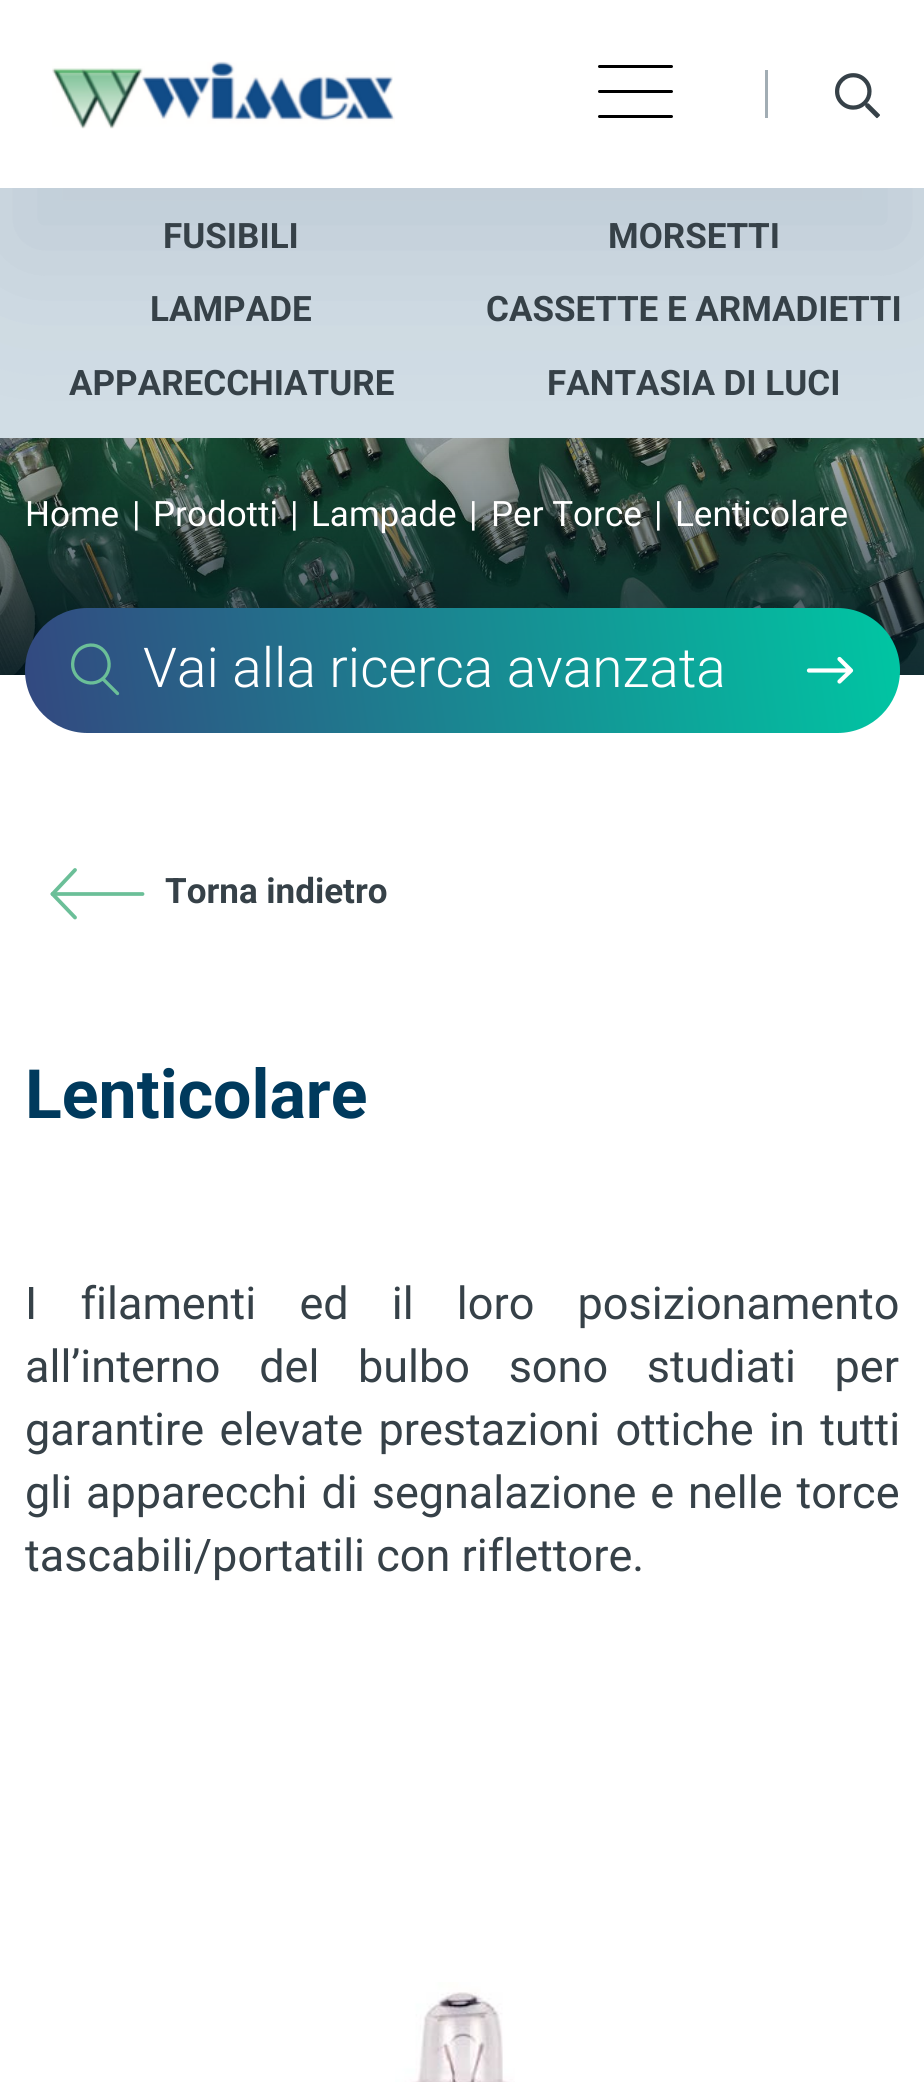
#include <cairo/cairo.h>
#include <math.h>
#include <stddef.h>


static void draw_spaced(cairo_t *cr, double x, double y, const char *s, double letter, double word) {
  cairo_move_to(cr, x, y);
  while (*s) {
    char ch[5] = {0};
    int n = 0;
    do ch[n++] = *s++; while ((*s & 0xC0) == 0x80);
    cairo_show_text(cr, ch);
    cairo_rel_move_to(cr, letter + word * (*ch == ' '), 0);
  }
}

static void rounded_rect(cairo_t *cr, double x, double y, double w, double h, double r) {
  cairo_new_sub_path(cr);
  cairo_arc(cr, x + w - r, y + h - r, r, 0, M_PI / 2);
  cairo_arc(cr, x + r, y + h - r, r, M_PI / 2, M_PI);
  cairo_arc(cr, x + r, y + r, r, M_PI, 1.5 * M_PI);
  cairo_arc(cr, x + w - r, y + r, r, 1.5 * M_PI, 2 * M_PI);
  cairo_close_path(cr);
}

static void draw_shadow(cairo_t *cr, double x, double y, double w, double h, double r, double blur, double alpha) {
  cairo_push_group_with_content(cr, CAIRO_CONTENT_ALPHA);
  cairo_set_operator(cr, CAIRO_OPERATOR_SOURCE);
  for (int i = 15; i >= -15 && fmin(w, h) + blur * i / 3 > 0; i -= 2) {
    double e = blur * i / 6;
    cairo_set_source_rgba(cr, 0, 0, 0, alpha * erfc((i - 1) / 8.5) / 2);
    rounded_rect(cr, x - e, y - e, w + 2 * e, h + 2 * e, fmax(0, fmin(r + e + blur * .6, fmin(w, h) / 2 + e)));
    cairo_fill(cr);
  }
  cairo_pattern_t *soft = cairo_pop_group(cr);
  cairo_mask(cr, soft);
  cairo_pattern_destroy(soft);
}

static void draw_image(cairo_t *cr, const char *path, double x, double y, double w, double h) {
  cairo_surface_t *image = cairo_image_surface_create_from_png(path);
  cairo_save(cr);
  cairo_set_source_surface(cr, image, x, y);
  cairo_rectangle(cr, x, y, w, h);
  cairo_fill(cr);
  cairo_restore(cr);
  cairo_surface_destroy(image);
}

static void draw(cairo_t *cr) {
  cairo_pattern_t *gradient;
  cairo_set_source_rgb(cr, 1, 1, 1);
  cairo_paint(cr);
  cairo_set_source_rgb(cr, 209 / 255.0, 221 / 255.0, 229 / 255.0);
  cairo_rectangle(cr, 0, 188, 924, 250);
  cairo_fill(cr);
  draw_image(cr, "images/3.png", 0, 438, 924, 237);
  cairo_set_source_rgb(cr, 32 / 255.0, 45 / 255.0, 80 / 255.0);
  draw_shadow(cr, 0, 75, 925, 188, 0, 75, 0.1);
  cairo_set_source_rgb(cr, 1, 1, 1);
  cairo_rectangle(cr, 0, 0, 924, 188);
  cairo_fill(cr);
  draw_image(cr, "images/1.png", 52, 61, 343, 68);
  cairo_set_source_rgb(cr, 0, 0, 0);
  rounded_rect(cr, 598, 90, 75, 3, 1.5);
  cairo_fill(cr);
  rounded_rect(cr, 598, 65, 75, 3, 1.5);
  cairo_fill(cr);
  rounded_rect(cr, 598, 115, 75, 3, 1.5);
  cairo_fill(cr);
  cairo_set_source_rgb(cr, 162 / 255.0, 173 / 255.0, 180 / 255.0);
  cairo_rectangle(cr, 765, 70, 3, 48);
  cairo_fill(cr);
  draw_image(cr, "images/2.png", 835, 73, 45, 46);
  gradient = cairo_pattern_create_linear(25, 732, 900, 608);
  cairo_pattern_add_color_stop_rgba(gradient, 0, 51 / 255.0, 72 / 255.0, 128 / 255.0, 1);
  cairo_pattern_add_color_stop_rgba(gradient, 1, 0, 198 / 255.0, 163 / 255.0, 1);
  cairo_set_source(cr, gradient);
  cairo_pattern_destroy(gradient);
  rounded_rect(cr, 25, 608, 875, 125, 62.5);
  cairo_fill(cr);
  cairo_new_path(cr);
  cairo_move_to(cr, 104, 677.5);
  cairo_curve_to(cr, 91, 690.5, 69.5, 678.5, 73, 660.5);
  cairo_curve_to(cr, 73.5, 656.5, 75.5, 653.5, 78, 650.5);
  cairo_curve_to(cr, 80.5, 648, 83.5, 646.5, 87, 645.5);
  cairo_curve_to(cr, 105.5, 641.5, 116, 665, 104, 677.5);
  cairo_close_path(cr);
  cairo_move_to(cr, 103, 679);
  cairo_line_to(cr, 117.5, 693.5);
  cairo_set_source_rgb(cr, 107 / 255.0, 191 / 255.0, 152 / 255.0);
  cairo_set_line_width(cr, 3.3);
  cairo_set_line_cap(cr, CAIRO_LINE_CAP_ROUND);
  cairo_stroke(cr);
  cairo_new_path(cr);
  cairo_move_to(cr, 809, 670.5);
  cairo_line_to(cr, 851, 670.5);
  cairo_move_to(cr, 839.5, 659);
  cairo_line_to(cr, 851, 670.5);
  cairo_line_to(cr, 839.5, 681.5);
  cairo_set_source_rgb(cr, 1, 1, 1);
  cairo_set_line_width(cr, 4.2);
  cairo_set_line_join(cr, CAIRO_LINE_JOIN_ROUND);
  cairo_stroke(cr);
  cairo_new_path(cr);
  cairo_move_to(cr, 142.5, 894);
  cairo_line_to(cr, 52.5, 894);
  cairo_set_source_rgb(cr, 107 / 255.0, 191 / 255.0, 152 / 255.0);
  cairo_set_line_width(cr, 3.8);
  cairo_stroke(cr);
  cairo_new_path(cr);
  cairo_move_to(cr, 75, 917.5);
  cairo_line_to(cr, 52.5, 894);
  cairo_line_to(cr, 75, 870);
  cairo_stroke(cr);
  draw_image(cr, "images/4.png", 395, 1982, 120, 100);
  cairo_select_font_face(cr, "Roboto", CAIRO_FONT_SLANT_NORMAL, CAIRO_FONT_WEIGHT_BOLD);
  cairo_set_font_size(cr, 35);
  cairo_set_source_rgb(cr, 54 / 255.0, 65 / 255.0, 72 / 255.0);
  cairo_move_to(cr, 163, 248);
  cairo_show_text(cr, "FUSIBILI");
  cairo_move_to(cr, 608, 248);
  cairo_show_text(cr, "MORSETTI");
  cairo_move_to(cr, 150, 321);
  cairo_show_text(cr, "LAMPADE");
  cairo_move_to(cr, 486, 321);
  cairo_show_text(cr, "CASSETTE E ARMADIETTI");
  cairo_move_to(cr, 69, 395);
  cairo_show_text(cr, "APPARECCHIATURE");
  cairo_move_to(cr, 547, 395);
  cairo_show_text(cr, "FANTASIA DI LUCI");
  cairo_select_font_face(cr, "Roboto", CAIRO_FONT_SLANT_NORMAL, CAIRO_FONT_WEIGHT_NORMAL);
  cairo_set_source_rgb(cr, 1, 1, 1);
  cairo_move_to(cr, 25, 526);
  cairo_show_text(cr, "Home");
  cairo_move_to(cr, 132, 526);
  cairo_show_text(cr, "|");
  cairo_move_to(cr, 153, 526);
  cairo_show_text(cr, "Prodotti");
  cairo_move_to(cr, 290, 526);
  cairo_show_text(cr, "|");
  cairo_move_to(cr, 311, 526);
  cairo_show_text(cr, "Lampade");
  cairo_move_to(cr, 469, 526);
  cairo_show_text(cr, "|");
  cairo_move_to(cr, 491, 526);
  cairo_show_text(cr, "Per Torce");
  cairo_move_to(cr, 654, 526);
  cairo_show_text(cr, "|");
  cairo_move_to(cr, 675, 526);
  cairo_show_text(cr, "Lenticolare");
  cairo_select_font_face(cr, "Roboto Light", CAIRO_FONT_SLANT_NORMAL, CAIRO_FONT_WEIGHT_NORMAL);
  cairo_set_font_size(cr, 55);
  cairo_move_to(cr, 143, 687);
  cairo_show_text(cr, "Vai alla ricerca avanzata");
  cairo_select_font_face(cr, "Roboto", CAIRO_FONT_SLANT_NORMAL, CAIRO_FONT_WEIGHT_BOLD);
  cairo_set_font_size(cr, 35);
  cairo_set_source_rgb(cr, 54 / 255.0, 65 / 255.0, 72 / 255.0);
  cairo_move_to(cr, 165, 903);
  cairo_show_text(cr, "Torna indietro");
  cairo_set_font_size(cr, 68);
  cairo_set_source_rgb(cr, 0, 58 / 255.0, 93 / 255.0);
  cairo_move_to(cr, 25, 1118);
  cairo_show_text(cr, "Lenticolare");
  cairo_select_font_face(cr, "Roboto", CAIRO_FONT_SLANT_NORMAL, CAIRO_FONT_WEIGHT_NORMAL);
  cairo_set_font_size(cr, 45);
  cairo_set_source_rgb(cr, 54 / 255.0, 65 / 255.0, 72 / 255.0);
  draw_spaced(cr, 25, 1319, "I filamenti ed il loro posizionamento", 0, 32);
  draw_spaced(cr, 25, 1382, "all’interno del bulbo sono studiati per", 0, 27.5);
  draw_spaced(cr, 25, 1445, "garantire elevate prestazioni ottiche in tutti", 0, 4.25);
  draw_spaced(cr, 25, 1508, "gli apparecchi di segnalazione e nelle torce", 0, 2.75);
  cairo_move_to(cr, 25, 1571);
  cairo_show_text(cr, "tascabili/portatili con riflettore.");
}

int main(void) {
  cairo_surface_t *surface = cairo_image_surface_create(CAIRO_FORMAT_RGB24, 924, 2082);
  cairo_t *cr = cairo_create(surface);
  cairo_font_options_t *options = cairo_font_options_create();
  cairo_font_options_set_hint_metrics(options, CAIRO_HINT_METRICS_OFF);
  cairo_font_options_set_hint_style(options, CAIRO_HINT_STYLE_NONE);
  cairo_set_font_options(cr, options);
  cairo_set_miter_limit(cr, 4);
  draw(cr);
  cairo_surface_write_to_png(surface, "out.png");
  cairo_font_options_destroy(options);
  cairo_destroy(cr);
  cairo_surface_destroy(surface);
  return 0;
}
